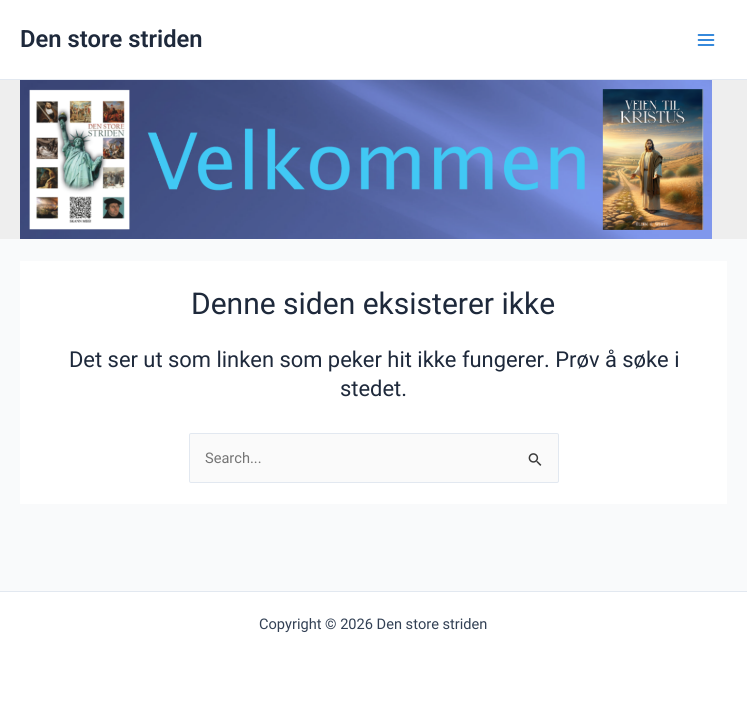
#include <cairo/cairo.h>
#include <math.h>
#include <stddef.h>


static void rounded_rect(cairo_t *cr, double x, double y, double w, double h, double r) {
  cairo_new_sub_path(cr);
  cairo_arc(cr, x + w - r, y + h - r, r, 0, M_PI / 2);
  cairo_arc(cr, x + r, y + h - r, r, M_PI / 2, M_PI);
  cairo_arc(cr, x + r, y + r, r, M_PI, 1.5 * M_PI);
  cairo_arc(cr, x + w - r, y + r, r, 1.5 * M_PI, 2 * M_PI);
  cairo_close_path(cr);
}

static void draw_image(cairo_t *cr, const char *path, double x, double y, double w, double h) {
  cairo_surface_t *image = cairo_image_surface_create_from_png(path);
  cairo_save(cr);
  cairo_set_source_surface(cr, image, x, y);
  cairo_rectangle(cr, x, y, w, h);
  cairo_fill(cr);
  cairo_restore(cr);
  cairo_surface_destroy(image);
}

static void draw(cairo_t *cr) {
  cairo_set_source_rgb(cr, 249 / 255.0, 250 / 255.0, 251 / 255.0);
  cairo_paint(cr);
  cairo_set_source_rgb(cr, 1, 1, 1);
  cairo_rectangle(cr, 0, 0, 747, 79);
  cairo_fill(cr);
  cairo_set_source_rgb(cr, 226 / 255.0, 232 / 255.0, 240 / 255.0);
  cairo_rectangle(cr, 0, 79, 747, 1);
  cairo_fill(cr);
  draw_image(cr, "images/1.png", 697, 34, 18, 12);
  cairo_set_source_rgb(cr, 238 / 255.0, 238 / 255.0, 238 / 255.0);
  cairo_rectangle(cr, 0, 80, 747, 159);
  cairo_fill(cr);
  draw_image(cr, "images/2.png", 20, 80, 692, 159);
  cairo_set_source_rgb(cr, 1, 1, 1);
  cairo_rectangle(cr, 20, 261, 707, 243);
  cairo_fill(cr);
  cairo_set_source_rgb(cr, 250 / 255.0, 250 / 255.0, 250 / 255.0);
  rounded_rect(cr, 189.5, 433.5, 369, 49, 1.5);
  cairo_fill_preserve(cr);
  cairo_set_source_rgb(cr, 226 / 255.0, 232 / 255.0, 240 / 255.0);
  cairo_set_line_width(cr, 1);
  cairo_stroke(cr);
  draw_image(cr, "images/3.png", 528, 453, 14, 13);
  cairo_set_source_rgb(cr, 1, 1, 1);
  cairo_rectangle(cr, 0, 592, 747, 120);
  cairo_fill(cr);
  cairo_set_source_rgb(cr, 226 / 255.0, 232 / 255.0, 240 / 255.0);
  cairo_rectangle(cr, 0, 591, 747, 1);
  cairo_fill(cr);
  cairo_select_font_face(cr, "Roboto SemiBold", CAIRO_FONT_SLANT_NORMAL, CAIRO_FONT_WEIGHT_NORMAL);
  cairo_set_font_size(cr, 23.75);
  cairo_set_source_rgb(cr, 30 / 255.0, 41 / 255.0, 59 / 255.0);
  cairo_move_to(cr, 20, 47);
  cairo_show_text(cr, "Den store striden");
  cairo_select_font_face(cr, "Roboto", CAIRO_FONT_SLANT_NORMAL, CAIRO_FONT_WEIGHT_NORMAL);
  cairo_set_font_size(cr, 30);
  cairo_move_to(cr, 191, 314);
  cairo_show_text(cr, "Denne siden eksisterer ikke");
  cairo_set_font_size(cr, 21.9);
  cairo_move_to(cr, 69, 367);
  cairo_show_text(cr, "Det ser ut som linken som peker hit ikke fungerer. Prøv å søke i");
  cairo_move_to(cr, 340, 396);
  cairo_show_text(cr, "stedet.");
  cairo_set_font_size(cr, 14.6);
  cairo_set_source_rgb(cr, 117 / 255.0, 117 / 255.0, 117 / 255.0);
  cairo_move_to(cr, 205, 463);
  cairo_show_text(cr, "Search...");
  cairo_set_source_rgb(cr, 51 / 255.0, 65 / 255.0, 85 / 255.0);
  cairo_move_to(cr, 259, 629);
  cairo_show_text(cr, "Copyright © 2026 Den store striden");
}

int main(void) {
  cairo_surface_t *surface = cairo_image_surface_create(CAIRO_FORMAT_RGB24, 747, 712);
  cairo_t *cr = cairo_create(surface);
  cairo_font_options_t *options = cairo_font_options_create();
  cairo_font_options_set_hint_metrics(options, CAIRO_HINT_METRICS_OFF);
  cairo_font_options_set_hint_style(options, CAIRO_HINT_STYLE_NONE);
  cairo_set_font_options(cr, options);
  cairo_set_miter_limit(cr, 4);
  draw(cr);
  cairo_surface_write_to_png(surface, "out.png");
  cairo_font_options_destroy(options);
  cairo_destroy(cr);
  cairo_surface_destroy(surface);
  return 0;
}
